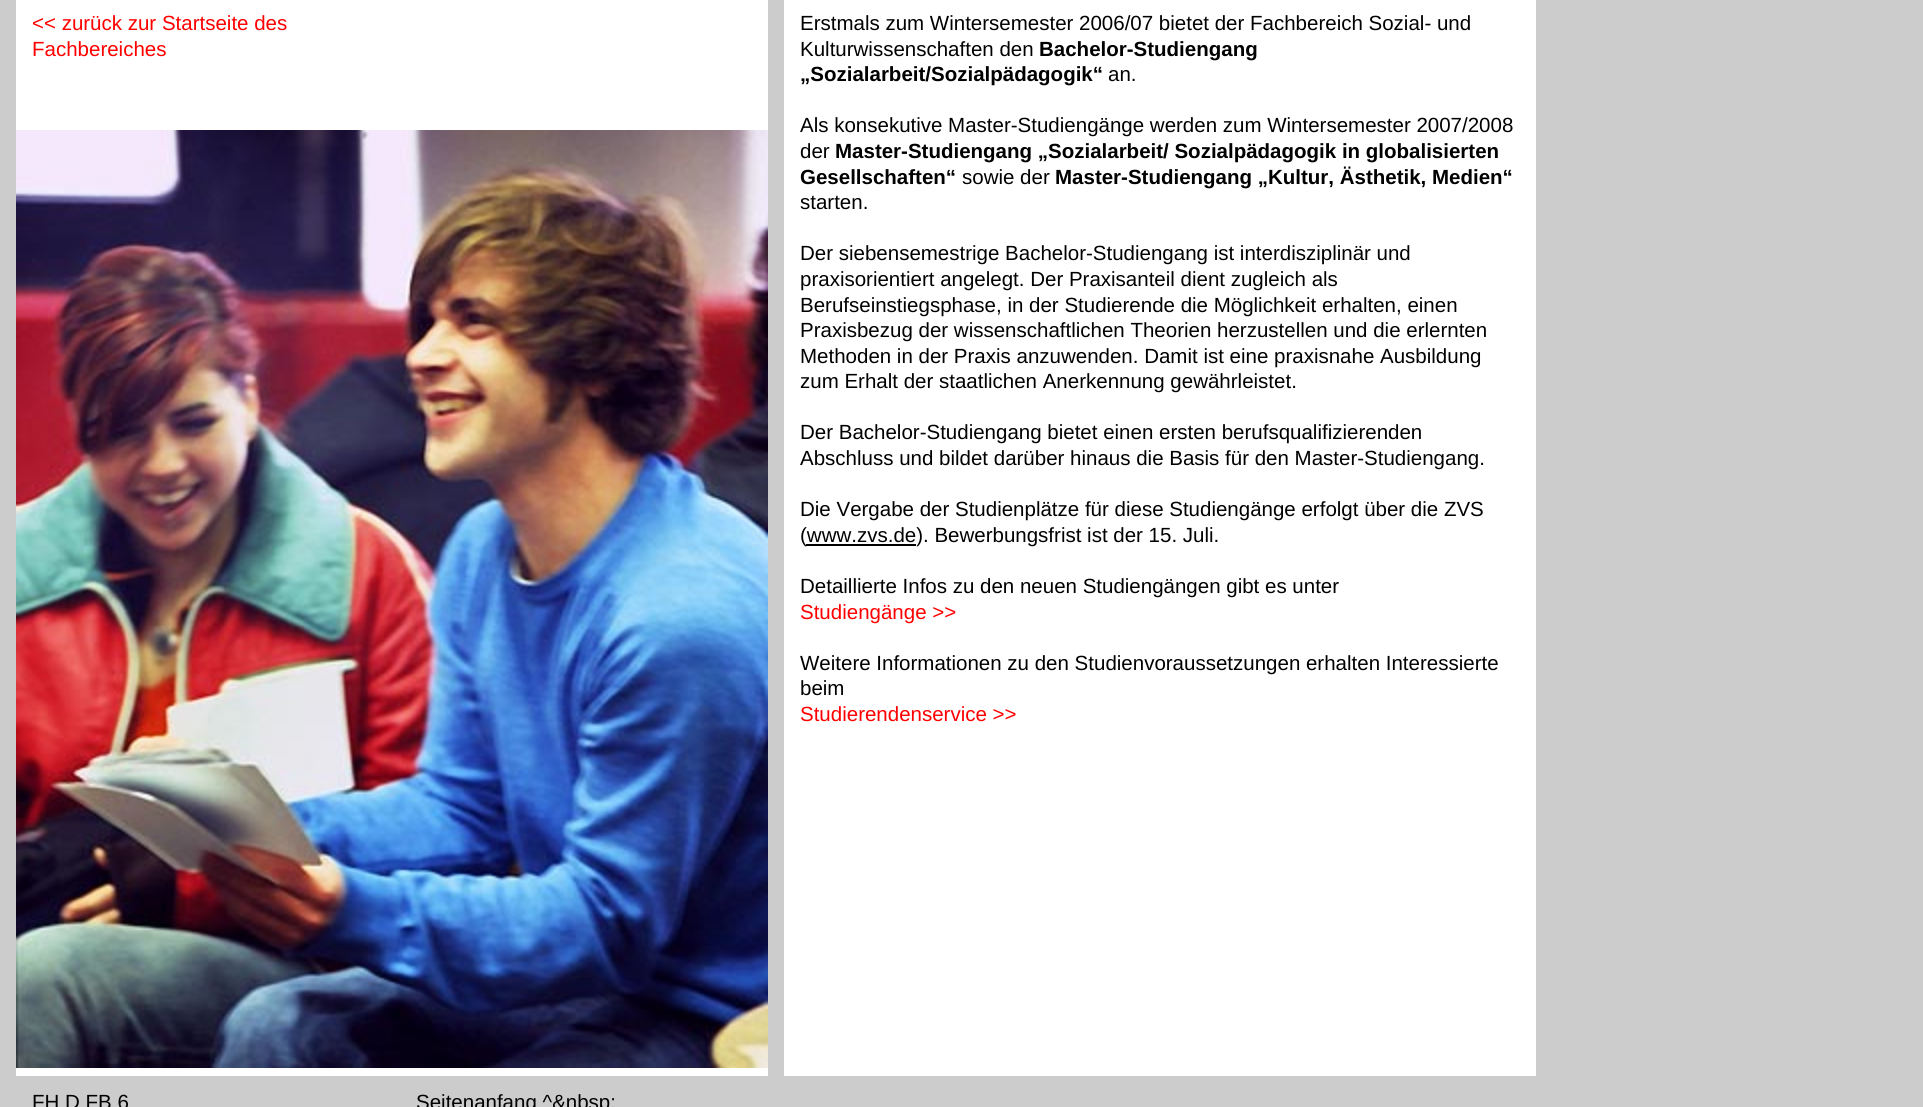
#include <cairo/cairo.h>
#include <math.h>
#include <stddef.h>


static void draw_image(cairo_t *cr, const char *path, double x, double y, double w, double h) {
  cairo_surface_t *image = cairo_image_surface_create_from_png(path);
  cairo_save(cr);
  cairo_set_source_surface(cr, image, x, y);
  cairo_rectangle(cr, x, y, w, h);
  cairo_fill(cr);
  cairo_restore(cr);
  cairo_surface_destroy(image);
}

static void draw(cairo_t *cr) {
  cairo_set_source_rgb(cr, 204 / 255.0, 204 / 255.0, 204 / 255.0);
  cairo_paint(cr);
  cairo_set_source_rgb(cr, 1, 1, 1);
  cairo_rectangle(cr, 16, 0, 752, 1076);
  cairo_fill(cr);
  draw_image(cr, "images/1.png", 16, 130, 752, 938);
  cairo_rectangle(cr, 784, 0, 752, 1076);
  cairo_fill(cr);
  cairo_set_source_rgb(cr, 0, 0, 0);
  cairo_rectangle(cr, 806, 544, 110, 2);
  cairo_fill(cr);
  cairo_select_font_face(cr, "Liberation Sans", CAIRO_FONT_SLANT_NORMAL, CAIRO_FONT_WEIGHT_NORMAL);
  cairo_set_font_size(cr, 20.5);
  cairo_set_source_rgb(cr, 1, 0, 0);
  cairo_move_to(cr, 32, 30);
  cairo_show_text(cr, "<< zurück zur Startseite des");
  cairo_move_to(cr, 32, 56);
  cairo_show_text(cr, "Fachbereiches");
  cairo_set_source_rgb(cr, 0, 0, 0);
  cairo_move_to(cr, 800, 30);
  cairo_show_text(cr, "Erstmals zum Wintersemester 2006/07 bietet der Fachbereich Sozial- und");
  cairo_move_to(cr, 800, 56);
  cairo_show_text(cr, "Kulturwissenschaften den");
  cairo_select_font_face(cr, "Liberation Sans", CAIRO_FONT_SLANT_NORMAL, CAIRO_FONT_WEIGHT_BOLD);
  cairo_move_to(cr, 1039, 56);
  cairo_show_text(cr, "Bachelor-Studiengang");
  cairo_move_to(cr, 800, 81);
  cairo_show_text(cr, "„Sozialarbeit/Sozialpädagogik“");
  cairo_select_font_face(cr, "Liberation Sans", CAIRO_FONT_SLANT_NORMAL, CAIRO_FONT_WEIGHT_NORMAL);
  cairo_move_to(cr, 1108, 81);
  cairo_show_text(cr, "an.");
  cairo_move_to(cr, 800, 132);
  cairo_show_text(cr, "Als konsekutive Master-Studiengänge werden zum Wintersemester 2007/2008");
  cairo_move_to(cr, 800, 158);
  cairo_show_text(cr, "der");
  cairo_select_font_face(cr, "Liberation Sans", CAIRO_FONT_SLANT_NORMAL, CAIRO_FONT_WEIGHT_BOLD);
  cairo_move_to(cr, 835, 158);
  cairo_show_text(cr, "Master-Studiengang „Sozialarbeit/ Sozialpädagogik in globalisierten");
  cairo_move_to(cr, 800, 184);
  cairo_show_text(cr, "Gesellschaften“");
  cairo_select_font_face(cr, "Liberation Sans", CAIRO_FONT_SLANT_NORMAL, CAIRO_FONT_WEIGHT_NORMAL);
  cairo_move_to(cr, 962, 184);
  cairo_show_text(cr, "sowie der");
  cairo_select_font_face(cr, "Liberation Sans", CAIRO_FONT_SLANT_NORMAL, CAIRO_FONT_WEIGHT_BOLD);
  cairo_move_to(cr, 1055, 184);
  cairo_show_text(cr, "Master-Studiengang „Kultur, Ästhetik, Medien“");
  cairo_select_font_face(cr, "Liberation Sans", CAIRO_FONT_SLANT_NORMAL, CAIRO_FONT_WEIGHT_NORMAL);
  cairo_move_to(cr, 800, 209);
  cairo_show_text(cr, "starten.");
  cairo_move_to(cr, 800, 260);
  cairo_show_text(cr, "Der siebensemestrige Bachelor-Studiengang ist interdisziplinär und");
  cairo_move_to(cr, 800, 286);
  cairo_show_text(cr, "praxisorientiert angelegt. Der Praxisanteil dient zugleich als");
  cairo_move_to(cr, 800, 312);
  cairo_show_text(cr, "Berufseinstiegsphase, in der Studierende die Möglichkeit erhalten, einen");
  cairo_move_to(cr, 800, 337);
  cairo_show_text(cr, "Praxisbezug der wissenschaftlichen Theorien herzustellen und die erlernten");
  cairo_move_to(cr, 800, 363);
  cairo_show_text(cr, "Methoden in der Praxis anzuwenden. Damit ist eine praxisnahe Ausbildung");
  cairo_move_to(cr, 800, 388);
  cairo_show_text(cr, "zum Erhalt der staatlichen Anerkennung gewährleistet.");
  cairo_move_to(cr, 800, 439);
  cairo_show_text(cr, "Der Bachelor-Studiengang bietet einen ersten berufsqualifizierenden");
  cairo_move_to(cr, 800, 465);
  cairo_show_text(cr, "Abschluss und bildet darüber hinaus die Basis für den Master-Studiengang.");
  cairo_move_to(cr, 800, 516);
  cairo_show_text(cr, "Die Vergabe der Studienplätze für diese Studiengänge erfolgt über die ZVS");
  cairo_move_to(cr, 800, 542);
  cairo_show_text(cr, "(www.zvs.de). Bewerbungsfrist ist der 15. Juli.");
  cairo_move_to(cr, 800, 593);
  cairo_show_text(cr, "Detaillierte Infos zu den neuen Studiengängen gibt es unter");
  cairo_set_source_rgb(cr, 1, 0, 0);
  cairo_move_to(cr, 800, 619);
  cairo_show_text(cr, "Studiengänge >>");
  cairo_set_source_rgb(cr, 0, 0, 0);
  cairo_move_to(cr, 800, 670);
  cairo_show_text(cr, "Weitere Informationen zu den Studienvoraussetzungen erhalten Interessierte");
  cairo_move_to(cr, 800, 695);
  cairo_show_text(cr, "beim");
  cairo_set_source_rgb(cr, 1, 0, 0);
  cairo_move_to(cr, 800, 721);
  cairo_show_text(cr, "Studierendenservice >>");
  cairo_set_source_rgb(cr, 0, 0, 0);
  cairo_move_to(cr, 32, 1109);
  cairo_show_text(cr, "FH D FB 6");
  cairo_move_to(cr, 416, 1109);
  cairo_show_text(cr, "Seitenanfang ^&nbsp;");
}

int main(void) {
  cairo_surface_t *surface = cairo_image_surface_create(CAIRO_FORMAT_RGB24, 1923, 1107);
  cairo_t *cr = cairo_create(surface);
  cairo_font_options_t *options = cairo_font_options_create();
  cairo_font_options_set_hint_metrics(options, CAIRO_HINT_METRICS_OFF);
  cairo_font_options_set_hint_style(options, CAIRO_HINT_STYLE_NONE);
  cairo_set_font_options(cr, options);
  cairo_set_miter_limit(cr, 4);
  draw(cr);
  cairo_surface_write_to_png(surface, "out.png");
  cairo_font_options_destroy(options);
  cairo_destroy(cr);
  cairo_surface_destroy(surface);
  return 0;
}
